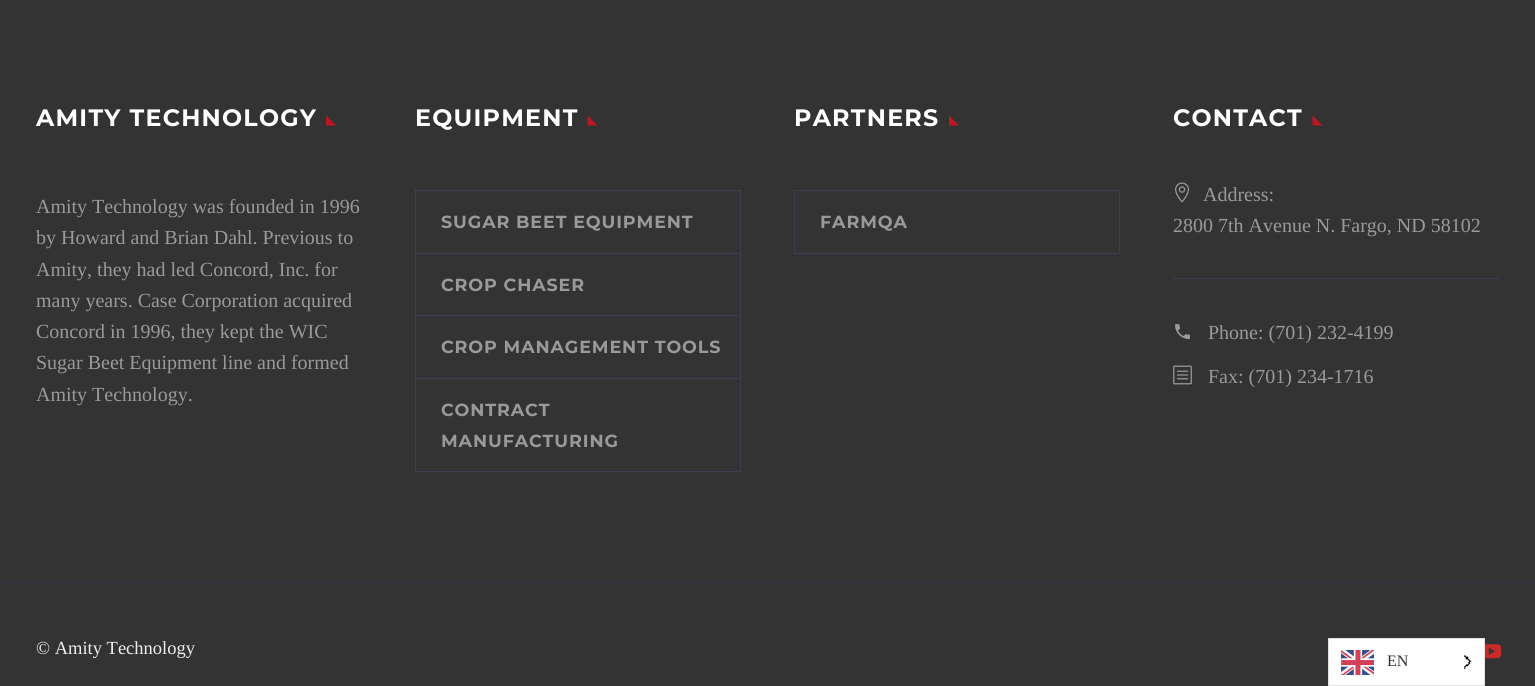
#include <cairo/cairo.h>
#include <math.h>
#include <stddef.h>


static void draw_spaced(cairo_t *cr, double x, double y, const char *s, double letter, double word) {
  cairo_move_to(cr, x, y);
  while (*s) {
    char ch[5] = {0};
    int n = 0;
    do ch[n++] = *s++; while ((*s & 0xC0) == 0x80);
    cairo_show_text(cr, ch);
    cairo_rel_move_to(cr, letter + word * (*ch == ' '), 0);
  }
}

static void draw_image(cairo_t *cr, const char *path, double x, double y, double w, double h) {
  cairo_surface_t *image = cairo_image_surface_create_from_png(path);
  cairo_save(cr);
  cairo_set_source_surface(cr, image, x, y);
  cairo_rectangle(cr, x, y, w, h);
  cairo_fill(cr);
  cairo_restore(cr);
  cairo_surface_destroy(image);
}

static void draw(cairo_t *cr) {
  cairo_set_source_rgb(cr, 51 / 255.0, 51 / 255.0, 51 / 255.0);
  cairo_paint(cr);
  cairo_set_source_rgb(cr, 187 / 255.0, 23 / 255.0, 34 / 255.0);
  cairo_new_path(cr);
  cairo_move_to(cr, 326, 115.5);
  cairo_line_to(cr, 326, 125.5);
  cairo_line_to(cr, 336, 125.5);
  cairo_close_path(cr);
  cairo_fill(cr);
  cairo_new_path(cr);
  cairo_move_to(cr, 587.5, 115.5);
  cairo_line_to(cr, 587.5, 125.5);
  cairo_line_to(cr, 597.5, 125.5);
  cairo_close_path(cr);
  cairo_fill(cr);
  cairo_set_source_rgb(cr, 57 / 255.0, 64 / 255.0, 80 / 255.0);
  cairo_rectangle(cr, 740, 190, 1, 283);
  cairo_fill(cr);
  cairo_rectangle(cr, 415, 471, 326, 1);
  cairo_fill(cr);
  cairo_rectangle(cr, 415, 190, 1, 283);
  cairo_fill(cr);
  cairo_rectangle(cr, 416, 190, 324, 1);
  cairo_fill(cr);
  cairo_rectangle(cr, 416, 253, 324, 1);
  cairo_fill(cr);
  cairo_rectangle(cr, 416, 315, 324, 1);
  cairo_fill(cr);
  cairo_rectangle(cr, 416, 378, 324, 1);
  cairo_fill(cr);
  cairo_set_source_rgb(cr, 187 / 255.0, 23 / 255.0, 34 / 255.0);
  cairo_new_path(cr);
  cairo_move_to(cr, 949, 115.5);
  cairo_line_to(cr, 949, 125.5);
  cairo_line_to(cr, 959, 125.5);
  cairo_close_path(cr);
  cairo_fill(cr);
  cairo_set_source_rgb(cr, 57 / 255.0, 64 / 255.0, 80 / 255.0);
  cairo_rectangle(cr, 1119, 190, 1, 64);
  cairo_fill(cr);
  cairo_rectangle(cr, 794, 253, 326, 1);
  cairo_fill(cr);
  cairo_rectangle(cr, 794, 190, 1, 64);
  cairo_fill(cr);
  cairo_rectangle(cr, 795, 190, 324, 1);
  cairo_fill(cr);
  cairo_set_source_rgb(cr, 187 / 255.0, 23 / 255.0, 34 / 255.0);
  cairo_new_path(cr);
  cairo_move_to(cr, 1312.5, 115.5);
  cairo_line_to(cr, 1312.5, 125.5);
  cairo_line_to(cr, 1322.5, 125.5);
  cairo_close_path(cr);
  cairo_fill(cr);
  cairo_set_source_rgb(cr, 57 / 255.0, 61 / 255.0, 80 / 255.0);
  cairo_rectangle(cr, 1173, 278, 326, 1);
  cairo_fill(cr);
  draw_image(cr, "images/1.png", 1175, 182, 14, 21);
  draw_image(cr, "images/2.png", 1175, 324, 15, 16);
  draw_image(cr, "images/3.png", 1173, 365, 19, 20);
  cairo_set_source_rgb(cr, 49 / 255.0, 54 / 255.0, 70 / 255.0);
  cairo_rectangle(cr, 0, 581, 1535, 1);
  cairo_fill(cr);
  draw_image(cr, "images/4.png", 1485, 644, 17, 15);
  cairo_set_source_rgb(cr, 1, 1, 1);
  cairo_rectangle(cr, 1328.5, 638.5, 156, 47);
  cairo_fill_preserve(cr);
  cairo_set_source_rgb(cr, 224 / 255.0, 224 / 255.0, 224 / 255.0);
  cairo_set_line_width(cr, 1);
  cairo_stroke(cr);
  draw_image(cr, "images/5.png", 1341, 650, 33, 25);
  draw_image(cr, "images/6.png", 1464, 655, 8, 14);
  cairo_select_font_face(cr, "Montserrat", CAIRO_FONT_SLANT_NORMAL, CAIRO_FONT_WEIGHT_BOLD);
  cairo_set_font_size(cr, 23.75);
  cairo_set_source_rgb(cr, 254 / 255.0, 1, 1);
  draw_spaced(cr, 36, 126, "AMITY TECHNOLOGY", 1.25, 0);
  cairo_select_font_face(cr, "Liberation Serif", CAIRO_FONT_SLANT_NORMAL, CAIRO_FONT_WEIGHT_NORMAL);
  cairo_set_font_size(cr, 20);
  cairo_set_source_rgb(cr, 153 / 255.0, 153 / 255.0, 153 / 255.0);
  cairo_move_to(cr, 36, 213);
  cairo_show_text(cr, "Amity Technology was founded in 1996");
  cairo_move_to(cr, 36, 244);
  cairo_show_text(cr, "by Howard and Brian Dahl. Previous to");
  cairo_move_to(cr, 36, 276);
  cairo_show_text(cr, "Amity, they had led Concord, Inc. for");
  cairo_move_to(cr, 36, 307);
  cairo_show_text(cr, "many years. Case Corporation acquired");
  cairo_move_to(cr, 36, 338);
  cairo_show_text(cr, "Concord in 1996, they kept the WIC");
  cairo_move_to(cr, 36, 369);
  cairo_show_text(cr, "Sugar Beet Equipment line and formed");
  cairo_move_to(cr, 36, 401);
  cairo_show_text(cr, "Amity Technology.");
  cairo_select_font_face(cr, "Montserrat", CAIRO_FONT_SLANT_NORMAL, CAIRO_FONT_WEIGHT_BOLD);
  cairo_set_font_size(cr, 23.75);
  cairo_set_source_rgb(cr, 254 / 255.0, 1, 1);
  draw_spaced(cr, 415, 126, "EQUIPMENT", 1.25, 0);
  cairo_set_font_size(cr, 17.5);
  cairo_set_source_rgb(cr, 153 / 255.0, 153 / 255.0, 153 / 255.0);
  draw_spaced(cr, 441, 228, "SUGAR BEET EQUIPMENT", 0.9, 0);
  draw_spaced(cr, 441, 291, "CROP CHASER", 0.9, 0);
  draw_spaced(cr, 441, 353, "CROP MANAGEMENT TOOLS", 0.9, 0);
  draw_spaced(cr, 441, 416, "CONTRACT", 0.9, 0);
  draw_spaced(cr, 441, 447, "MANUFACTURING", 0.9, 0);
  cairo_set_font_size(cr, 23.75);
  cairo_set_source_rgb(cr, 254 / 255.0, 1, 1);
  draw_spaced(cr, 794, 126, "PARTNERS", 1.25, 0);
  cairo_set_font_size(cr, 17.5);
  cairo_set_source_rgb(cr, 153 / 255.0, 153 / 255.0, 153 / 255.0);
  draw_spaced(cr, 820, 228, "FARMQA", 0.9, 0);
  cairo_set_font_size(cr, 23.75);
  cairo_set_source_rgb(cr, 254 / 255.0, 1, 1);
  draw_spaced(cr, 1173, 126, "CONTACT", 1.25, 0);
  cairo_select_font_face(cr, "Liberation Serif", CAIRO_FONT_SLANT_NORMAL, CAIRO_FONT_WEIGHT_NORMAL);
  cairo_set_font_size(cr, 20);
  cairo_set_source_rgb(cr, 153 / 255.0, 153 / 255.0, 153 / 255.0);
  cairo_move_to(cr, 1203, 201);
  cairo_show_text(cr, "Address:");
  cairo_move_to(cr, 1173, 232);
  cairo_show_text(cr, "2800 7th Avenue N. Fargo, ND 58102");
  cairo_move_to(cr, 1208, 339);
  cairo_show_text(cr, "Phone: (701) 232-4199");
  cairo_move_to(cr, 1208, 383);
  cairo_show_text(cr, "Fax: (701) 234-1716");
  cairo_set_font_size(cr, 18.5);
  cairo_set_source_rgb(cr, 238 / 255.0, 238 / 255.0, 238 / 255.0);
  cairo_move_to(cr, 36, 654);
  cairo_show_text(cr, "© Amity Technology");
  cairo_set_font_size(cr, 16);
  cairo_set_source_rgb(cr, 51 / 255.0, 51 / 255.0, 51 / 255.0);
  cairo_move_to(cr, 1387, 666);
  cairo_show_text(cr, "EN");
}

int main(void) {
  cairo_surface_t *surface = cairo_image_surface_create(CAIRO_FORMAT_RGB24, 1535, 686);
  cairo_t *cr = cairo_create(surface);
  cairo_font_options_t *options = cairo_font_options_create();
  cairo_font_options_set_hint_metrics(options, CAIRO_HINT_METRICS_OFF);
  cairo_font_options_set_hint_style(options, CAIRO_HINT_STYLE_NONE);
  cairo_set_font_options(cr, options);
  cairo_set_miter_limit(cr, 4);
  draw(cr);
  cairo_surface_write_to_png(surface, "out.png");
  cairo_font_options_destroy(options);
  cairo_destroy(cr);
  cairo_surface_destroy(surface);
  return 0;
}
